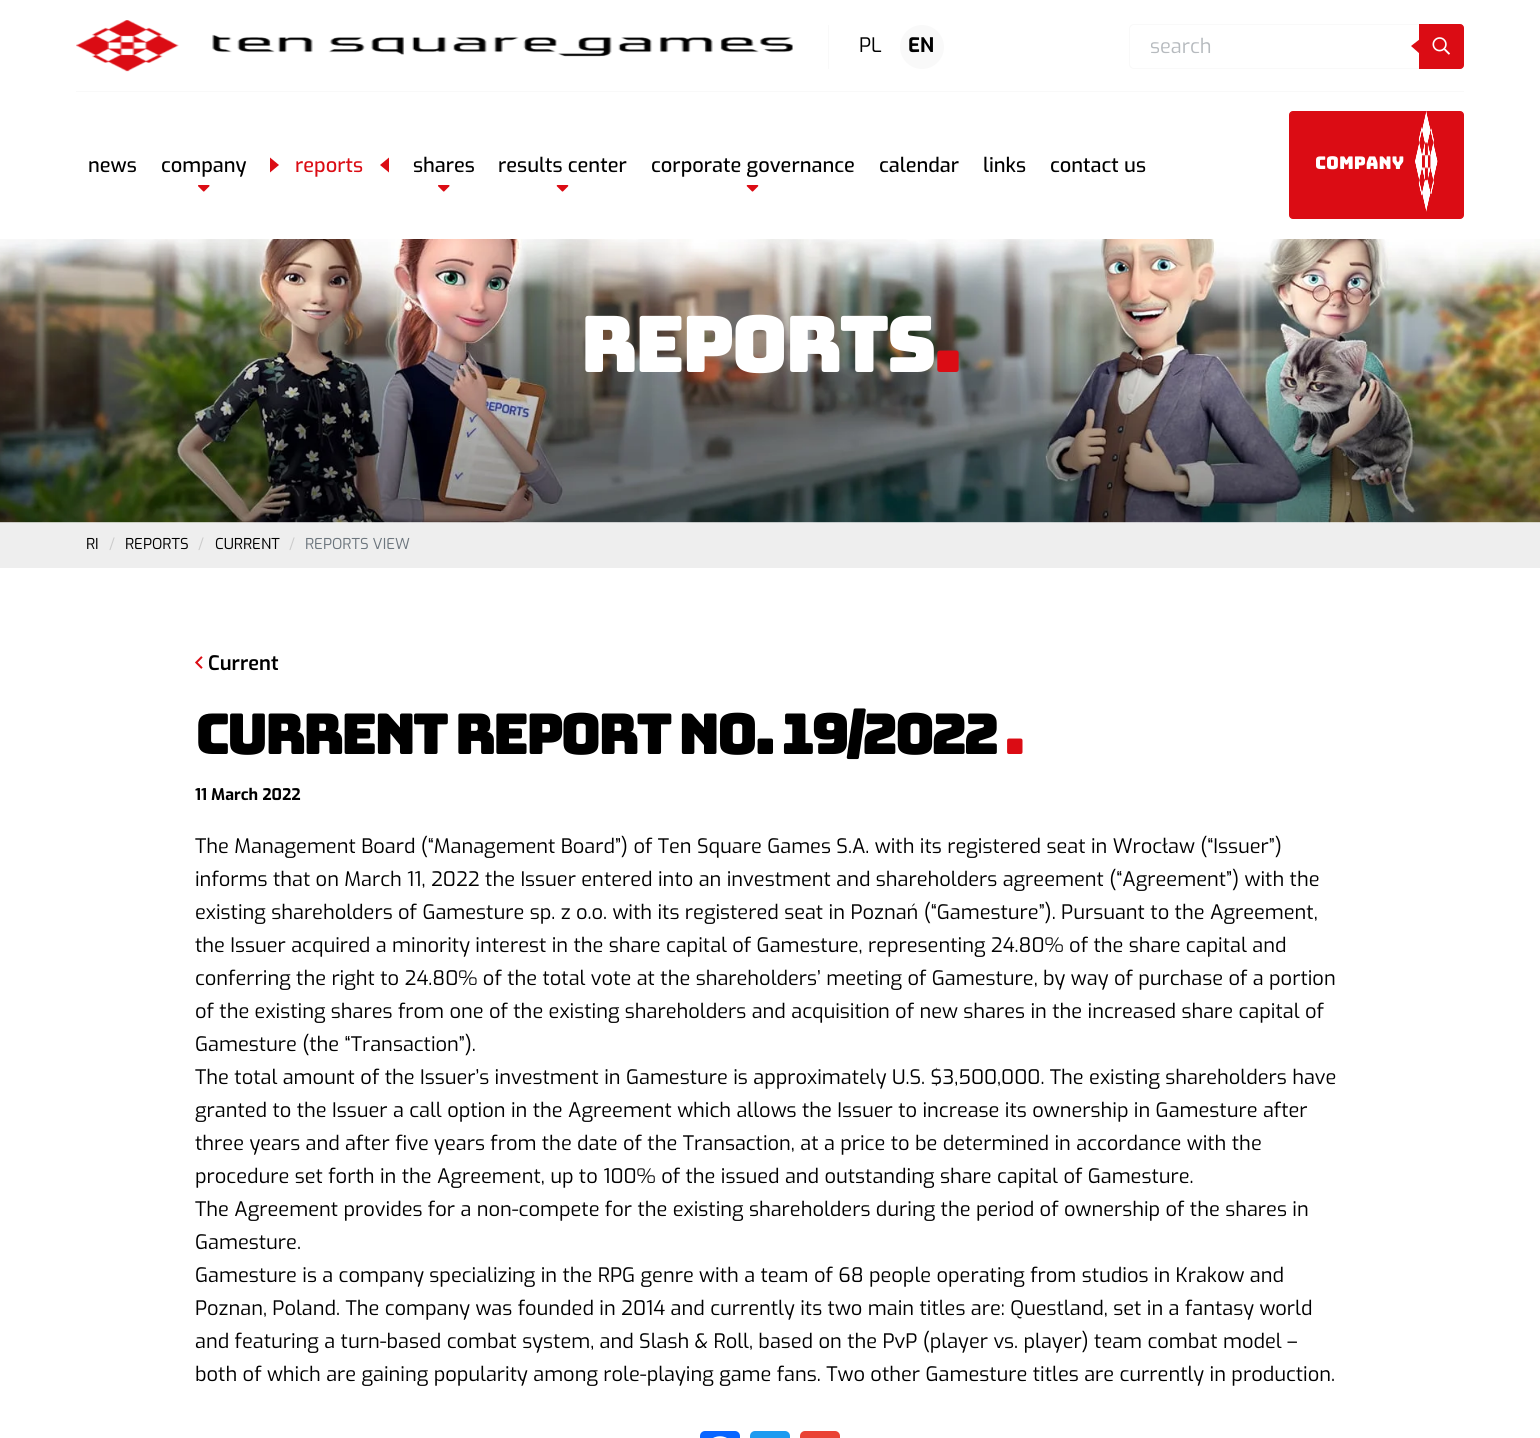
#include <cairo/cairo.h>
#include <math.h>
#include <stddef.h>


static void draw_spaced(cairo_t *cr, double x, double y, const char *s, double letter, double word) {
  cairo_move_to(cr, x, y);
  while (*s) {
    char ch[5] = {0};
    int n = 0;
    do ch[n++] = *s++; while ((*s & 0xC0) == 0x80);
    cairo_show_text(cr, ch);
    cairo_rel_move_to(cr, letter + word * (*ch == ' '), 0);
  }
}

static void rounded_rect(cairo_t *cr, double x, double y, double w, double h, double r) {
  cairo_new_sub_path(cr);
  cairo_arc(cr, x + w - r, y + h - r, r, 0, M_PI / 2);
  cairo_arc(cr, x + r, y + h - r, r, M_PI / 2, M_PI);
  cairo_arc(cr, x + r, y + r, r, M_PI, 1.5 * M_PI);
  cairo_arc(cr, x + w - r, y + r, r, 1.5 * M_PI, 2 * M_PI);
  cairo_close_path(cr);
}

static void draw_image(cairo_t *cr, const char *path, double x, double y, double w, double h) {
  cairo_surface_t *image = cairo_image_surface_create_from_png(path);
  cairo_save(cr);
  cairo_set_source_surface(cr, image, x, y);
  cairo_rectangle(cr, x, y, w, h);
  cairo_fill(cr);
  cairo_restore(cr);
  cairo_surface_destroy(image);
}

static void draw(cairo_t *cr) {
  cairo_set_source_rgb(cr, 1, 1, 1);
  cairo_paint(cr);
  draw_image(cr, "images/1.png", 76, 20, 717, 52);
  cairo_set_source_rgb(cr, 249 / 255.0, 249 / 255.0, 249 / 255.0);
  cairo_rectangle(cr, 828, 25, 1, 44);
  cairo_fill(cr);
  cairo_arc(cr, 922, 47, 22, 0, 2 * M_PI);
  cairo_fill(cr);
  cairo_set_fill_rule(cr, CAIRO_FILL_RULE_EVEN_ODD);
  cairo_new_path(cr);
  cairo_move_to(cr, 1134, 24);
  cairo_line_to(cr, 1420, 24);
  cairo_line_to(cr, 1420, 69);
  cairo_line_to(cr, 1134, 69);
  cairo_curve_to(cr, 1131, 69, 1129, 67, 1129, 64);
  cairo_line_to(cr, 1129, 29);
  cairo_curve_to(cr, 1129, 26, 1131, 24, 1134, 24);
  cairo_close_path(cr);
  cairo_move_to(cr, 1134, 25);
  cairo_line_to(cr, 1420, 25);
  cairo_line_to(cr, 1420, 68);
  cairo_line_to(cr, 1134, 68);
  cairo_curve_to(cr, 1132, 68, 1130, 66, 1130, 64);
  cairo_line_to(cr, 1130, 29);
  cairo_curve_to(cr, 1130, 27, 1132, 25, 1134, 25);
  cairo_close_path(cr);
  cairo_fill(cr);
  cairo_set_source_rgb(cr, 219 / 255.0, 12 / 255.0, 20 / 255.0);
  cairo_new_path(cr);
  cairo_move_to(cr, 1419.5, 24.5);
  cairo_line_to(cr, 1460, 24.5);
  cairo_curve_to(cr, 1462, 24.5, 1463.5, 26, 1463.5, 28);
  cairo_line_to(cr, 1463.5, 65);
  cairo_curve_to(cr, 1463.5, 67, 1462, 68.5, 1460, 68.5);
  cairo_line_to(cr, 1419.5, 68.5);
  cairo_close_path(cr);
  cairo_fill_preserve(cr);
  cairo_set_line_width(cr, 1);
  cairo_stroke(cr);
  cairo_set_fill_rule(cr, CAIRO_FILL_RULE_WINDING);
  cairo_new_path(cr);
  cairo_move_to(cr, 1420, 39);
  cairo_line_to(cr, 1420, 54);
  cairo_line_to(cr, 1411, 46);
  cairo_close_path(cr);
  cairo_fill(cr);
  draw_image(cr, "images/2.png", 1432, 37, 18, 18);
  cairo_set_source_rgb(cr, 249 / 255.0, 249 / 255.0, 249 / 255.0);
  cairo_rectangle(cr, 76, 91, 1388, 1);
  cairo_fill(cr);
  draw_image(cr, "images/3.png", 198, 185, 12, 7);
  cairo_set_source_rgb(cr, 219 / 255.0, 12 / 255.0, 20 / 255.0);
  cairo_new_path(cr);
  cairo_move_to(cr, 270, 172.5);
  cairo_line_to(cr, 270, 157.5);
  cairo_line_to(cr, 279, 165);
  cairo_close_path(cr);
  cairo_fill(cr);
  cairo_new_path(cr);
  cairo_move_to(cr, 389, 157.5);
  cairo_line_to(cr, 389, 172.5);
  cairo_line_to(cr, 380, 165);
  cairo_close_path(cr);
  cairo_fill(cr);
  draw_image(cr, "images/3.png", 438, 185, 12, 7);
  draw_image(cr, "images/4.png", 556, 185, 13, 7);
  draw_image(cr, "images/4.png", 746, 185, 13, 7);
  rounded_rect(cr, 1289.5, 111.5, 174, 107, 3.5);
  cairo_fill_preserve(cr);
  cairo_stroke(cr);
  draw_image(cr, "images/5.png", 1415, 111, 23, 101);
  draw_image(cr, "images/6.png", 0, 239, 1540, 284);
  cairo_set_source_rgb(cr, 238 / 255.0, 238 / 255.0, 238 / 255.0);
  cairo_rectangle(cr, 0, 523, 1540, 45);
  cairo_fill(cr);
  draw_image(cr, "images/7.png", 195, 656, 8, 13);
  cairo_set_source_rgb(cr, 8 / 255.0, 102 / 255.0, 1);
  rounded_rect(cr, 700, 1431, 40, 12, 5);
  cairo_fill(cr);
  draw_image(cr, "images/8.png", 713, 1436, 14, 2);
  cairo_set_source_rgb(cr, 29 / 255.0, 155 / 255.0, 240 / 255.0);
  rounded_rect(cr, 750, 1431, 40, 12, 5);
  cairo_fill(cr);
  cairo_set_source_rgb(cr, 234 / 255.0, 67 / 255.0, 53 / 255.0);
  rounded_rect(cr, 800, 1431, 40, 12, 5);
  cairo_fill(cr);
  cairo_select_font_face(cr, "Exo", CAIRO_FONT_SLANT_NORMAL, CAIRO_FONT_WEIGHT_NORMAL);
  cairo_set_font_size(cr, 20);
  cairo_set_source_rgb(cr, 0, 0, 0);
  cairo_move_to(cr, 859, 52);
  cairo_show_text(cr, "PL");
  cairo_select_font_face(cr, "Exo", CAIRO_FONT_SLANT_NORMAL, CAIRO_FONT_WEIGHT_BOLD);
  cairo_move_to(cr, 908, 52);
  cairo_show_text(cr, "EN");
  cairo_select_font_face(cr, "Exo", CAIRO_FONT_SLANT_NORMAL, CAIRO_FONT_WEIGHT_NORMAL);
  cairo_set_source_rgb(cr, 182 / 255.0, 186 / 255.0, 190 / 255.0);
  cairo_move_to(cr, 1150, 53);
  cairo_show_text(cr, "search");
  cairo_select_font_face(cr, "Exo Medium", CAIRO_FONT_SLANT_NORMAL, CAIRO_FONT_WEIGHT_NORMAL);
  cairo_set_source_rgb(cr, 0, 0, 0);
  cairo_move_to(cr, 88, 172);
  cairo_show_text(cr, "news");
  cairo_move_to(cr, 161, 172);
  cairo_show_text(cr, "company");
  cairo_set_source_rgb(cr, 219 / 255.0, 12 / 255.0, 20 / 255.0);
  cairo_move_to(cr, 295, 172);
  cairo_show_text(cr, "reports");
  cairo_set_source_rgb(cr, 0, 0, 0);
  cairo_move_to(cr, 413, 172);
  cairo_show_text(cr, "shares");
  cairo_move_to(cr, 498, 172);
  cairo_show_text(cr, "results center");
  cairo_move_to(cr, 651, 172);
  cairo_show_text(cr, "corporate governance");
  cairo_move_to(cr, 879, 172);
  cairo_show_text(cr, "calendar");
  cairo_move_to(cr, 983, 172);
  cairo_show_text(cr, "links");
  cairo_move_to(cr, 1050, 172);
  cairo_show_text(cr, "contact us");
  cairo_select_font_face(cr, "Bungee", CAIRO_FONT_SLANT_NORMAL, CAIRO_FONT_WEIGHT_NORMAL);
  cairo_set_font_size(cr, 17.5);
  cairo_set_source_rgb(cr, 1, 1, 1);
  cairo_move_to(cr, 1315, 169);
  cairo_show_text(cr, "COMPANY");
  cairo_set_font_size(cr, 78);
  draw_spaced(cr, 580, 372, "Reports", -3.75, 0);
  cairo_set_source_rgb(cr, 219 / 255.0, 12 / 255.0, 20 / 255.0);
  draw_spaced(cr, 933, 372, ".", -3.75, 0);
  cairo_select_font_face(cr, "Exo", CAIRO_FONT_SLANT_NORMAL, CAIRO_FONT_WEIGHT_NORMAL);
  cairo_set_font_size(cr, 15);
  cairo_set_source_rgb(cr, 0, 0, 0);
  cairo_move_to(cr, 86, 549);
  cairo_show_text(cr, "RI");
  cairo_set_source_rgb(cr, 204 / 255.0, 204 / 255.0, 204 / 255.0);
  cairo_move_to(cr, 109, 549);
  cairo_show_text(cr, "/");
  cairo_set_source_rgb(cr, 0, 0, 0);
  cairo_move_to(cr, 125, 549);
  cairo_show_text(cr, "REPORTS");
  cairo_set_source_rgb(cr, 204 / 255.0, 204 / 255.0, 204 / 255.0);
  cairo_move_to(cr, 198, 549);
  cairo_show_text(cr, "/");
  cairo_set_source_rgb(cr, 0, 0, 0);
  cairo_move_to(cr, 215, 549);
  cairo_show_text(cr, "CURRENT");
  cairo_set_source_rgb(cr, 204 / 255.0, 204 / 255.0, 204 / 255.0);
  cairo_move_to(cr, 289, 549);
  cairo_show_text(cr, "/");
  cairo_set_source_rgb(cr, 108 / 255.0, 117 / 255.0, 125 / 255.0);
  cairo_move_to(cr, 305, 549);
  cairo_show_text(cr, "REPORTS VIEW");
  cairo_select_font_face(cr, "Exo SemiBold", CAIRO_FONT_SLANT_NORMAL, CAIRO_FONT_WEIGHT_NORMAL);
  cairo_set_font_size(cr, 20);
  cairo_set_source_rgb(cr, 0, 0, 0);
  cairo_move_to(cr, 208, 670);
  cairo_show_text(cr, "Current");
  cairo_select_font_face(cr, "Bungee", CAIRO_FONT_SLANT_NORMAL, CAIRO_FONT_WEIGHT_NORMAL);
  cairo_set_font_size(cr, 56.25);
  draw_spaced(cr, 195, 754, "Current report No. 19/2022", -3.75, 0);
  cairo_set_source_rgb(cr, 219 / 255.0, 12 / 255.0, 20 / 255.0);
  draw_spaced(cr, 1004, 754, ".", -3.75, 0);
  cairo_select_font_face(cr, "Exo", CAIRO_FONT_SLANT_NORMAL, CAIRO_FONT_WEIGHT_BOLD);
  cairo_set_font_size(cr, 16);
  cairo_set_source_rgb(cr, 0, 0, 0);
  cairo_move_to(cr, 195, 800);
  cairo_show_text(cr, "11 March 2022");
  cairo_select_font_face(cr, "Exo", CAIRO_FONT_SLANT_NORMAL, CAIRO_FONT_WEIGHT_NORMAL);
  cairo_set_font_size(cr, 20);
  cairo_move_to(cr, 195, 853);
  cairo_show_text(cr, "The Management Board (“Management Board”) of Ten Square Games S.A. with its registered seat in Wrocław (“Issuer”)");
  cairo_move_to(cr, 195, 886);
  cairo_show_text(cr, "informs that on March 11, 2022 the Issuer entered into an investment and shareholders agreement (“Agreement”) with the");
  cairo_move_to(cr, 195, 919);
  cairo_show_text(cr, "existing shareholders of Gamesture sp. z o.o. with its registered seat in Poznań (“Gamesture”). Pursuant to the Agreement,");
  cairo_move_to(cr, 195, 952);
  cairo_show_text(cr, "the Issuer acquired a minority interest in the share capital of Gamesture, representing 24.80% of the share capital and");
  cairo_move_to(cr, 195, 985);
  cairo_show_text(cr, "conferring the right to 24.80% of the total vote at the shareholders’ meeting of Gamesture, by way of purchase of a portion");
  cairo_move_to(cr, 195, 1018);
  cairo_show_text(cr, "of the existing shares from one of the existing shareholders and acquisition of new shares in the increased share capital of");
  cairo_move_to(cr, 195, 1051);
  cairo_show_text(cr, "Gamesture (the “Transaction”).");
  cairo_move_to(cr, 195, 1084);
  cairo_show_text(cr, "The total amount of the Issuer’s investment in Gamesture is approximately U.S. $3,500,000. The existing shareholders have");
  cairo_move_to(cr, 195, 1117);
  cairo_show_text(cr, "granted to the Issuer a call option in the Agreement which allows the Issuer to increase its ownership in Gamesture after");
  cairo_move_to(cr, 195, 1150);
  cairo_show_text(cr, "three years and after five years from the date of the Transaction, at a price to be determined in accordance with the");
  cairo_move_to(cr, 195, 1183);
  cairo_show_text(cr, "procedure set forth in the Agreement, up to 100% of the issued and outstanding share capital of Gamesture.");
  cairo_move_to(cr, 195, 1216);
  cairo_show_text(cr, "The Agreement provides for a non-compete for the existing shareholders during the period of ownership of the shares in");
  cairo_move_to(cr, 195, 1249);
  cairo_show_text(cr, "Gamesture.");
  cairo_move_to(cr, 195, 1282);
  cairo_show_text(cr, "Gamesture is a company specializing in the RPG genre with a team of 68 people operating from studios in Krakow and");
  cairo_move_to(cr, 195, 1315);
  cairo_show_text(cr, "Poznan, Poland. The company was founded in 2014 and currently its two main titles are: Questland, set in a fantasy world");
  cairo_move_to(cr, 195, 1348);
  cairo_show_text(cr, "and featuring a turn-based combat system, and Slash & Roll, based on the PvP (player vs. player) team combat model –");
  cairo_move_to(cr, 195, 1381);
  cairo_show_text(cr, "both of which are gaining popularity among role-playing game fans. Two other Gamesture titles are currently in production.");
}

int main(void) {
  cairo_surface_t *surface = cairo_image_surface_create(CAIRO_FORMAT_RGB24, 1540, 1438);
  cairo_t *cr = cairo_create(surface);
  cairo_font_options_t *options = cairo_font_options_create();
  cairo_font_options_set_hint_metrics(options, CAIRO_HINT_METRICS_OFF);
  cairo_font_options_set_hint_style(options, CAIRO_HINT_STYLE_NONE);
  cairo_set_font_options(cr, options);
  cairo_set_miter_limit(cr, 4);
  draw(cr);
  cairo_surface_write_to_png(surface, "out.png");
  cairo_font_options_destroy(options);
  cairo_destroy(cr);
  cairo_surface_destroy(surface);
  return 0;
}
